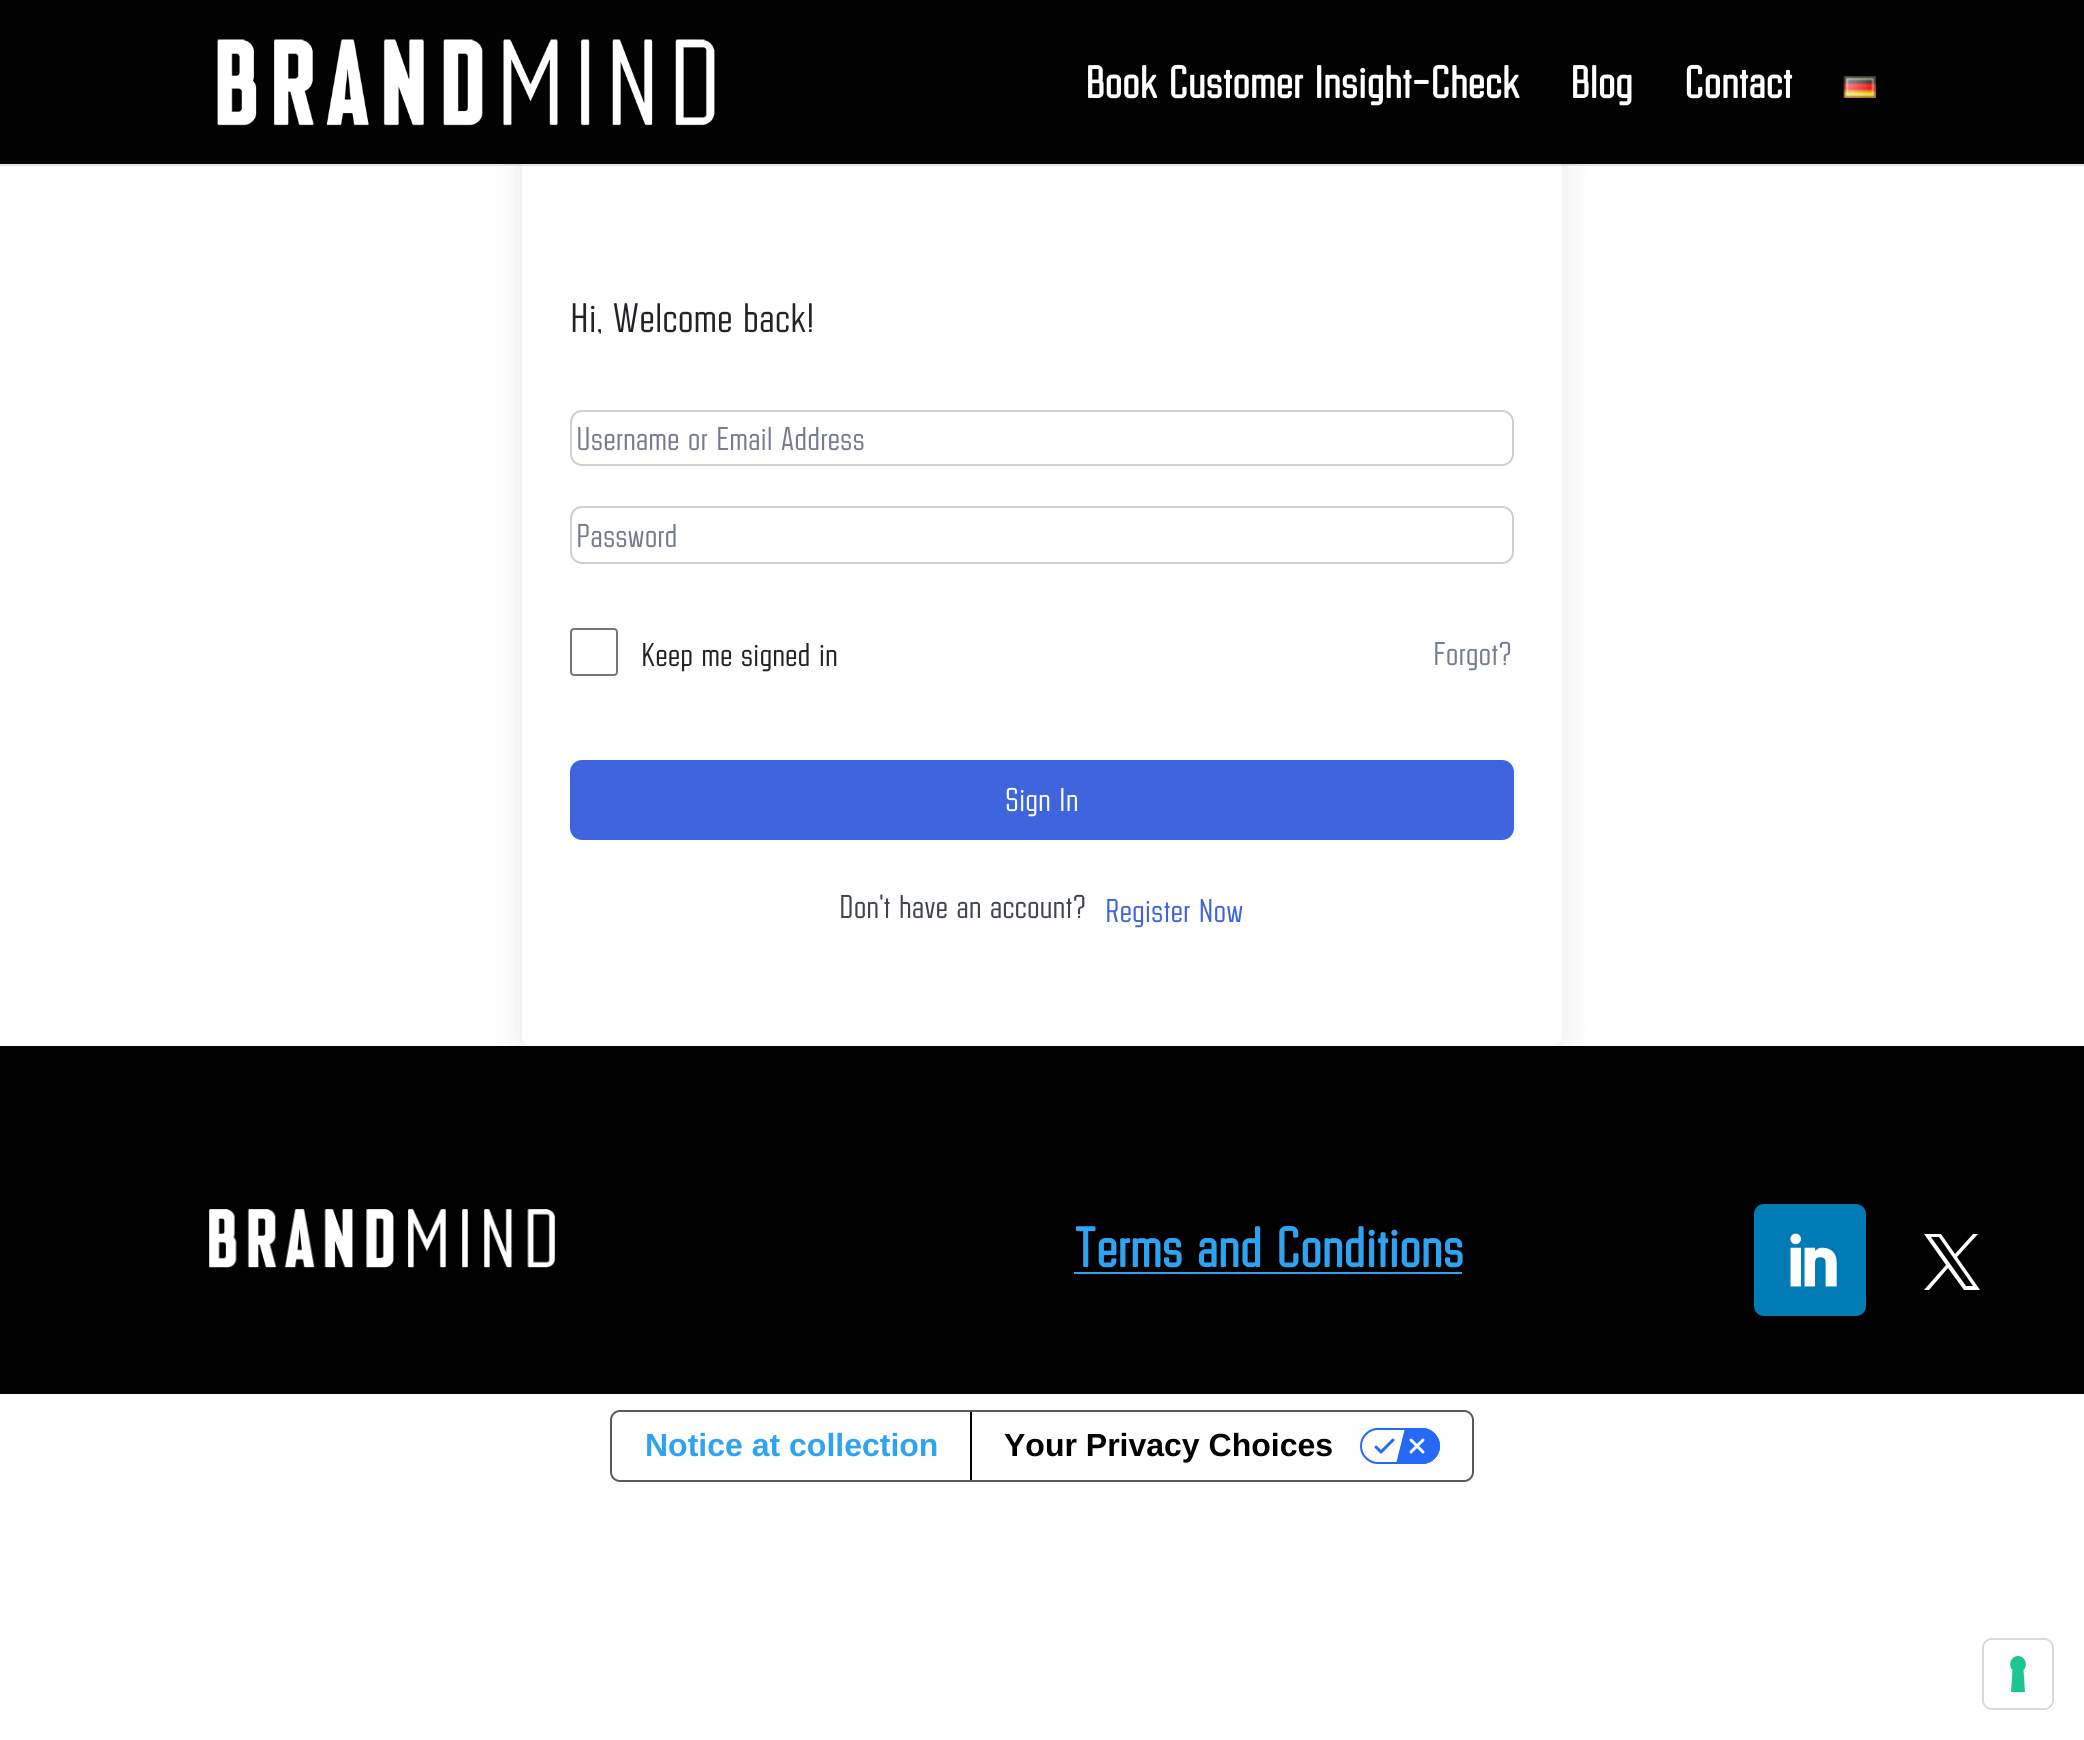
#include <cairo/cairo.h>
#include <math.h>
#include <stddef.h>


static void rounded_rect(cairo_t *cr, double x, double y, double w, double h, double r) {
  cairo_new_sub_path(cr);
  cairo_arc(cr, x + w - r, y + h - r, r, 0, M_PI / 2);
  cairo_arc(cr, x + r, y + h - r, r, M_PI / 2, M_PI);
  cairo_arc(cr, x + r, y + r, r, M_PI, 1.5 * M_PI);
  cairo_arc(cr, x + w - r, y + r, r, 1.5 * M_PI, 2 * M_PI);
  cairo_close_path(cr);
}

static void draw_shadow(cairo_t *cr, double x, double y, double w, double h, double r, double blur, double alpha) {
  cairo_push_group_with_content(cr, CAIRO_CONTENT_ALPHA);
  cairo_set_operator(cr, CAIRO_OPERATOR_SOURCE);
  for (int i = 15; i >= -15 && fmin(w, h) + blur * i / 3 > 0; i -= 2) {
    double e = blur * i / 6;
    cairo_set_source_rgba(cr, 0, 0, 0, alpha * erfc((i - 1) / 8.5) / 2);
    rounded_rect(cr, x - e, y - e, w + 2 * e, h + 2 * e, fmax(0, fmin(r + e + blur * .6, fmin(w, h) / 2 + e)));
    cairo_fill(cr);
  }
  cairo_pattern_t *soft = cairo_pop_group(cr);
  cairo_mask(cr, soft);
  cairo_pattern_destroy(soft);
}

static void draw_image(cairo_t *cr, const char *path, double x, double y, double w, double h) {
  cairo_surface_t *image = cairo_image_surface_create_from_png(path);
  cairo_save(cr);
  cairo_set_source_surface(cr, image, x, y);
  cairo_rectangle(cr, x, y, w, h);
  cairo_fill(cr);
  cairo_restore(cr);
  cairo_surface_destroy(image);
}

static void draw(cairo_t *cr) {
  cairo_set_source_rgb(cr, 1, 1, 1);
  cairo_paint(cr);
  cairo_save(cr);
  cairo_set_fill_rule(cr, CAIRO_FILL_RULE_EVEN_ODD);
  cairo_new_path(cr);
  cairo_move_to(cr, 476, 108);
  cairo_line_to(cr, 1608, 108);
  cairo_line_to(cr, 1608, 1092);
  cairo_line_to(cr, 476, 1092);
  cairo_close_path(cr);
  cairo_move_to(cr, 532, 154);
  cairo_line_to(cr, 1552, 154);
  cairo_curve_to(cr, 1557.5, 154, 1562, 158.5, 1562, 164);
  cairo_line_to(cr, 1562, 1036);
  cairo_curve_to(cr, 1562, 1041.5, 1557.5, 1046, 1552, 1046);
  cairo_line_to(cr, 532, 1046);
  cairo_curve_to(cr, 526.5, 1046, 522, 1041.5, 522, 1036);
  cairo_line_to(cr, 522, 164);
  cairo_curve_to(cr, 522, 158.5, 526.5, 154, 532, 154);
  cairo_close_path(cr);
  cairo_clip(cr);
  cairo_set_source_rgb(cr, 0, 0, 0);
  draw_shadow(cr, 522, 154, 1040, 892, 10, 15, 0.1);
  cairo_restore(cr);
  cairo_set_source_rgba(cr, 0, 0, 0, 0.1);
  cairo_rectangle(cr, 0, 164, 2084, 2);
  cairo_fill(cr);
  cairo_set_source_rgb(cr, 2 / 255.0, 2 / 255.0, 2 / 255.0);
  cairo_rectangle(cr, 0, 0, 2084, 164);
  cairo_fill(cr);
  draw_image(cr, "images/1.png", 217, 39, 498, 87);
  draw_image(cr, "images/2.png", 1843, 76, 33, 22);
  rounded_rect(cr, 571, 411, 942, 54, 11);
  cairo_set_source_rgb(cr, 205 / 255.0, 207 / 255.0, 213 / 255.0);
  cairo_stroke(cr);
  rounded_rect(cr, 571, 507, 942, 56, 11);
  cairo_stroke(cr);
  rounded_rect(cr, 571, 629, 46, 46, 3);
  cairo_set_source_rgb(cr, 118 / 255.0, 118 / 255.0, 118 / 255.0);
  cairo_stroke(cr);
  cairo_set_source_rgb(cr, 62 / 255.0, 100 / 255.0, 222 / 255.0);
  rounded_rect(cr, 571, 761, 942, 78, 11);
  cairo_fill_preserve(cr);
  cairo_stroke(cr);
  cairo_set_source_rgb(cr, 0, 0, 0);
  cairo_rectangle(cr, 0, 1046, 2084, 348);
  cairo_fill(cr);
  draw_image(cr, "images/3.png", 209, 1209, 347, 59);
  cairo_set_source_rgb(cr, 46 / 255.0, 163 / 255.0, 242 / 255.0);
  cairo_rectangle(cr, 1074, 1272, 388, 2);
  cairo_fill(cr);
  cairo_set_source_rgb(cr, 0, 123 / 255.0, 182 / 255.0);
  rounded_rect(cr, 1754, 1204, 112, 112, 10);
  cairo_fill(cr);
  draw_image(cr, "images/4.png", 1790, 1233, 47, 54);
  cairo_set_source_rgb(cr, 1, 1, 1);
  cairo_new_path(cr);
  cairo_move_to(cr, 1924, 1234);
  cairo_line_to(cr, 1946, 1265);
  cairo_line_to(cr, 1924, 1290);
  cairo_line_to(cr, 1929, 1290);
  cairo_line_to(cr, 1948, 1268);
  cairo_line_to(cr, 1964, 1290);
  cairo_line_to(cr, 1980, 1290);
  cairo_line_to(cr, 1957, 1257);
  cairo_line_to(cr, 1978, 1234);
  cairo_line_to(cr, 1973, 1234);
  cairo_line_to(cr, 1955, 1254);
  cairo_line_to(cr, 1941, 1234);
  cairo_close_path(cr);
  cairo_move_to(cr, 1931, 1237);
  cairo_line_to(cr, 1939, 1237);
  cairo_line_to(cr, 1973, 1286);
  cairo_line_to(cr, 1966, 1286);
  cairo_close_path(cr);
  cairo_fill(cr);
  rounded_rect(cr, 611, 1411, 862, 70, 9);
  cairo_set_source_rgb(cr, 89 / 255.0, 89 / 255.0, 89 / 255.0);
  cairo_stroke(cr);
  cairo_set_source_rgb(cr, 0, 0, 0);
  cairo_rectangle(cr, 970, 1412, 2, 68);
  cairo_fill(cr);
  draw_image(cr, "images/5.png", 1360, 1428, 80, 36);
  rounded_rect(cr, 1983, 1639, 70, 70, 9);
  cairo_set_source_rgb(cr, 217 / 255.0, 217 / 255.0, 217 / 255.0);
  cairo_stroke(cr);
  cairo_set_source_rgb(cr, 1, 1, 1);
  rounded_rect(cr, 1984, 1640, 68, 68, 8);
  cairo_fill(cr);
  cairo_set_source_rgb(cr, 28 / 255.0, 198 / 255.0, 145 / 255.0);
  cairo_set_fill_rule(cr, CAIRO_FILL_RULE_EVEN_ODD);
  cairo_new_path(cr);
  cairo_move_to(cr, 2018, 1656);
  cairo_curve_to(cr, 2025, 1656, 2028.5, 1665.5, 2023.5, 1670);
  cairo_line_to(cr, 2025, 1692);
  cairo_line_to(cr, 2011, 1692);
  cairo_line_to(cr, 2012.5, 1670);
  cairo_curve_to(cr, 2007.5, 1665.5, 2011, 1656, 2018, 1656);
  cairo_close_path(cr);
  cairo_fill(cr);
  cairo_select_font_face(cr, "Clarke", CAIRO_FONT_SLANT_NORMAL, CAIRO_FONT_WEIGHT_BOLD);
  cairo_set_font_size(cr, 44);
  cairo_set_source_rgb(cr, 1, 1, 1);
  cairo_move_to(cr, 1085, 98);
  cairo_show_text(cr, "Book Customer Insight-Check");
  cairo_move_to(cr, 1570, 98);
  cairo_show_text(cr, "Blog");
  cairo_move_to(cr, 1684, 98);
  cairo_show_text(cr, "Contact");
  cairo_select_font_face(cr, "Clarke Light", CAIRO_FONT_SLANT_NORMAL, CAIRO_FONT_WEIGHT_NORMAL);
  cairo_set_font_size(cr, 40);
  cairo_set_source_rgb(cr, 33 / 255.0, 35 / 255.0, 39 / 255.0);
  cairo_move_to(cr, 570, 332);
  cairo_show_text(cr, "Hi, Welcome back!");
  cairo_set_font_size(cr, 32);
  cairo_set_source_rgb(cr, 117 / 255.0, 124 / 255.0, 142 / 255.0);
  cairo_move_to(cr, 576, 450);
  cairo_show_text(cr, "Username or Email Address");
  cairo_move_to(cr, 576, 547);
  cairo_show_text(cr, "Password");
  cairo_set_source_rgb(cr, 33 / 255.0, 35 / 255.0, 39 / 255.0);
  cairo_move_to(cr, 641, 666);
  cairo_show_text(cr, "Keep me signed in");
  cairo_set_source_rgb(cr, 117 / 255.0, 124 / 255.0, 142 / 255.0);
  cairo_move_to(cr, 1433, 665);
  cairo_show_text(cr, "Forgot?");
  cairo_set_source_rgb(cr, 1, 1, 1);
  cairo_move_to(cr, 1005, 811);
  cairo_show_text(cr, "Sign In");
  cairo_set_source_rgb(cr, 65 / 255.0, 69 / 255.0, 79 / 255.0);
  cairo_move_to(cr, 839, 918);
  cairo_show_text(cr, "Don't have an account?");
  cairo_set_source_rgb(cr, 62 / 255.0, 100 / 255.0, 222 / 255.0);
  cairo_move_to(cr, 1105, 922);
  cairo_show_text(cr, "Register Now");
  cairo_select_font_face(cr, "Clarke", CAIRO_FONT_SLANT_NORMAL, CAIRO_FONT_WEIGHT_BOLD);
  cairo_set_font_size(cr, 54.5);
  cairo_set_source_rgb(cr, 46 / 255.0, 163 / 255.0, 242 / 255.0);
  cairo_move_to(cr, 1074, 1267);
  cairo_show_text(cr, "Terms and Conditions");
  cairo_select_font_face(cr, "Liberation Sans", CAIRO_FONT_SLANT_NORMAL, CAIRO_FONT_WEIGHT_BOLD);
  cairo_set_font_size(cr, 32);
  cairo_move_to(cr, 645, 1456);
  cairo_show_text(cr, "Notice at collection");
  cairo_set_source_rgb(cr, 0, 0, 0);
  cairo_move_to(cr, 1004, 1456);
  cairo_show_text(cr, "Your Privacy Choices");
}

int main(void) {
  cairo_surface_t *surface = cairo_image_surface_create(CAIRO_FORMAT_RGB24, 2084, 1740);
  cairo_t *cr = cairo_create(surface);
  cairo_font_options_t *options = cairo_font_options_create();
  cairo_font_options_set_hint_metrics(options, CAIRO_HINT_METRICS_OFF);
  cairo_font_options_set_hint_style(options, CAIRO_HINT_STYLE_NONE);
  cairo_set_font_options(cr, options);
  cairo_set_miter_limit(cr, 4);
  draw(cr);
  cairo_surface_write_to_png(surface, "out.png");
  cairo_font_options_destroy(options);
  cairo_destroy(cr);
  cairo_surface_destroy(surface);
  return 0;
}
